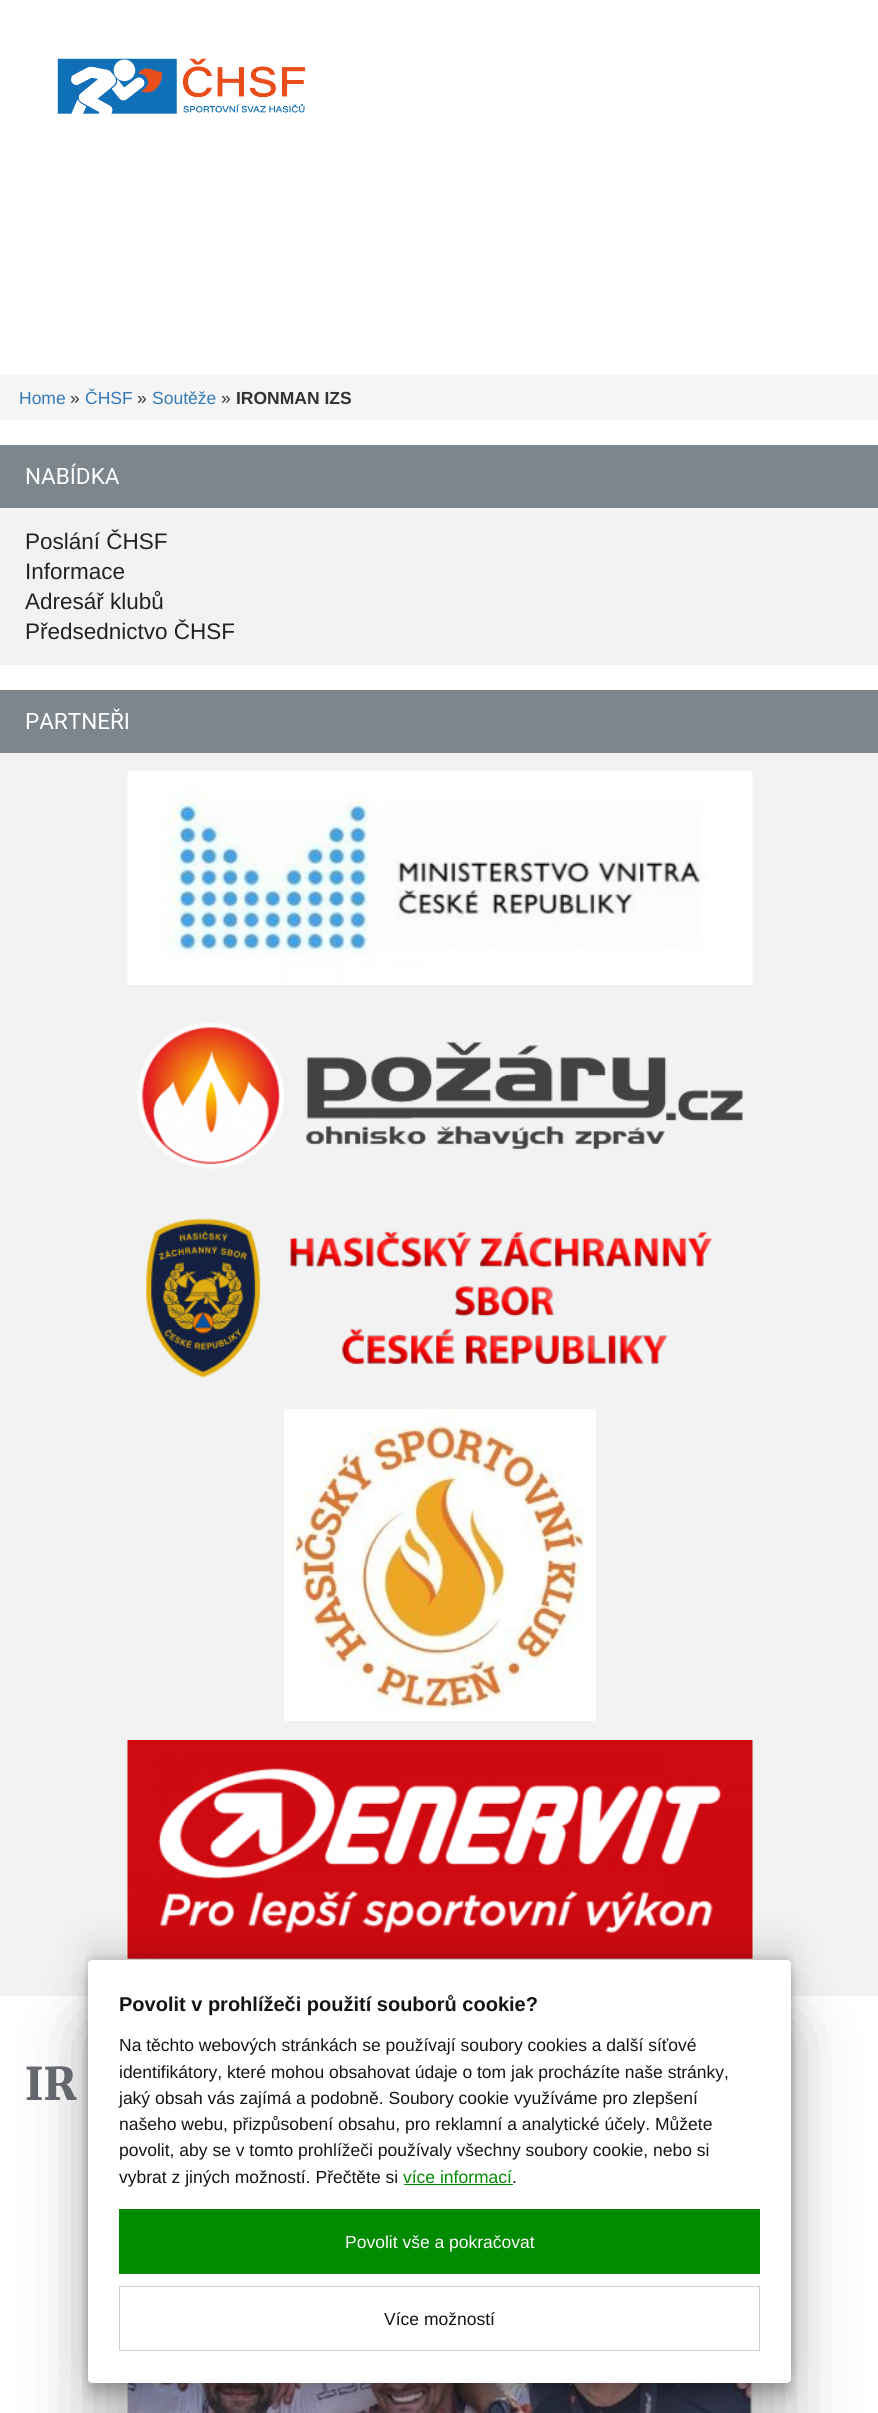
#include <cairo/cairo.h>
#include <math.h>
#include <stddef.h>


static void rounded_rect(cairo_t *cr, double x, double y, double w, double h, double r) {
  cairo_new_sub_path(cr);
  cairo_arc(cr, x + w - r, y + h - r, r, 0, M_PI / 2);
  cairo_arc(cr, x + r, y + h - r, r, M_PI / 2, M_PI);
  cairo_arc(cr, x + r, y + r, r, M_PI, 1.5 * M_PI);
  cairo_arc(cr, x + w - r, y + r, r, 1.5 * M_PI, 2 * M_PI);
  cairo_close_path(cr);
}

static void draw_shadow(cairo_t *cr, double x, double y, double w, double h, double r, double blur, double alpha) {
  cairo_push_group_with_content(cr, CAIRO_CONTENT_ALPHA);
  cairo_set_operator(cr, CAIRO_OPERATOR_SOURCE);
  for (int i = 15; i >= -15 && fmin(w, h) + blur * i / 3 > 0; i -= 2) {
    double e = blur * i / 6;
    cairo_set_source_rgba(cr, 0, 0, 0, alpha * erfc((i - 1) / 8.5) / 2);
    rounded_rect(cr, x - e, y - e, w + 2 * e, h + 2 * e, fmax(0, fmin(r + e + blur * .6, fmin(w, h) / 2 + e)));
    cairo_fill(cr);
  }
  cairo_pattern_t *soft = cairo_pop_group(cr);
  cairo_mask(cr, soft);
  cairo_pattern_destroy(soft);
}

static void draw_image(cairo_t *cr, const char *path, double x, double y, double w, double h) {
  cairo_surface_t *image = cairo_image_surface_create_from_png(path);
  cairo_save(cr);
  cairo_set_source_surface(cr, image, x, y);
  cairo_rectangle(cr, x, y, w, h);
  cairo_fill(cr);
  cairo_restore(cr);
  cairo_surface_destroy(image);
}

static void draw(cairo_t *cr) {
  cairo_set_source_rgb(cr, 1, 1, 1);
  cairo_paint(cr);
  draw_image(cr, "images/1.png", 57, 58, 249, 56);
  cairo_set_source_rgb(cr, 245 / 255.0, 245 / 255.0, 245 / 255.0);
  cairo_rectangle(cr, 0, 375, 878, 45);
  cairo_fill(cr);
  cairo_set_source_rgb(cr, 242 / 255.0, 242 / 255.0, 242 / 255.0);
  cairo_rectangle(cr, 0, 508, 878, 157);
  cairo_fill(cr);
  cairo_set_source_rgb(cr, 124 / 255.0, 134 / 255.0, 140 / 255.0);
  cairo_rectangle(cr, 0, 445, 878, 63);
  cairo_fill(cr);
  cairo_set_source_rgb(cr, 242 / 255.0, 242 / 255.0, 242 / 255.0);
  cairo_rectangle(cr, 0, 753, 878, 1243);
  cairo_fill(cr);
  cairo_set_source_rgb(cr, 124 / 255.0, 134 / 255.0, 140 / 255.0);
  cairo_rectangle(cr, 0, 690, 878, 63);
  cairo_fill(cr);
  draw_image(cr, "images/2.png", 127, 771, 626, 214);
  draw_image(cr, "images/3.png", 137, 1022, 606, 147);
  draw_image(cr, "images/4.png", 145, 1218, 568, 160);
  draw_image(cr, "images/5.png", 284, 1409, 312, 312);
  draw_image(cr, "images/6.png", 127, 1740, 626, 219);
  draw_image(cr, "images/7.png", 127, 2383, 626, 30);
  cairo_set_source_rgb(cr, 0, 0, 0);
  draw_shadow(cr, 88, 1956, 703, 423, 4, 3, 0.09);
  draw_shadow(cr, 88, 1975, 703, 423, 4, 8, 0.17);
  draw_shadow(cr, 88, 1965, 703, 423, 4, 4, 0.12);
  draw_shadow(cr, 88, 1945, 703, 423, 4, 19, 0.12);
  draw_shadow(cr, 88, 2028, 703, 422, 4, 34.5, 0.25);
  cairo_set_source_rgb(cr, 1, 1, 1);
  rounded_rect(cr, 88, 1960, 703, 423, 4);
  cairo_fill(cr);
  cairo_set_source_rgb(cr, 0, 139 / 255.0, 0);
  cairo_rectangle(cr, 404, 2184, 109, 1);
  cairo_fill(cr);
  cairo_rectangle(cr, 119, 2209, 641, 65);
  cairo_fill(cr);
  cairo_rectangle(cr, 119.5, 2286.5, 640, 64);
  cairo_set_source_rgb(cr, 208 / 255.0, 208 / 255.0, 208 / 255.0);
  cairo_set_line_width(cr, 1);
  cairo_stroke(cr);
  cairo_select_font_face(cr, "Liberation Sans", CAIRO_FONT_SLANT_NORMAL, CAIRO_FONT_WEIGHT_NORMAL);
  cairo_set_font_size(cr, 17.5);
  cairo_set_source_rgb(cr, 51 / 255.0, 122 / 255.0, 183 / 255.0);
  cairo_move_to(cr, 19, 404);
  cairo_show_text(cr, "Home");
  cairo_set_source_rgb(cr, 51 / 255.0, 51 / 255.0, 51 / 255.0);
  cairo_move_to(cr, 70, 404);
  cairo_show_text(cr, "»");
  cairo_set_source_rgb(cr, 51 / 255.0, 122 / 255.0, 183 / 255.0);
  cairo_move_to(cr, 85, 404);
  cairo_show_text(cr, "ČHSF");
  cairo_set_source_rgb(cr, 51 / 255.0, 51 / 255.0, 51 / 255.0);
  cairo_move_to(cr, 137, 404);
  cairo_show_text(cr, "»");
  cairo_set_source_rgb(cr, 51 / 255.0, 122 / 255.0, 183 / 255.0);
  cairo_move_to(cr, 152, 404);
  cairo_show_text(cr, "Soutěže");
  cairo_set_source_rgb(cr, 51 / 255.0, 51 / 255.0, 51 / 255.0);
  cairo_move_to(cr, 221, 404);
  cairo_show_text(cr, "»");
  cairo_select_font_face(cr, "Liberation Sans", CAIRO_FONT_SLANT_NORMAL, CAIRO_FONT_WEIGHT_BOLD);
  cairo_move_to(cr, 236, 404);
  cairo_show_text(cr, "IRONMAN IZS");
  cairo_select_font_face(cr, "Roboto", CAIRO_FONT_SLANT_NORMAL, CAIRO_FONT_WEIGHT_NORMAL);
  cairo_set_font_size(cr, 22.5);
  cairo_set_source_rgb(cr, 1, 1, 1);
  cairo_move_to(cr, 25, 484);
  cairo_show_text(cr, "NABÍDKA");
  cairo_select_font_face(cr, "Liberation Sans", CAIRO_FONT_SLANT_NORMAL, CAIRO_FONT_WEIGHT_NORMAL);
  cairo_set_source_rgb(cr, 34 / 255.0, 34 / 255.0, 34 / 255.0);
  cairo_move_to(cr, 25, 549);
  cairo_show_text(cr, "Poslání ČHSF");
  cairo_move_to(cr, 25, 579);
  cairo_show_text(cr, "Informace");
  cairo_move_to(cr, 25, 609);
  cairo_show_text(cr, "Adresář klubů");
  cairo_move_to(cr, 25, 639);
  cairo_show_text(cr, "Předsednictvo ČHSF");
  cairo_select_font_face(cr, "Roboto", CAIRO_FONT_SLANT_NORMAL, CAIRO_FONT_WEIGHT_NORMAL);
  cairo_set_source_rgb(cr, 1, 1, 1);
  cairo_move_to(cr, 25, 729);
  cairo_show_text(cr, "PARTNEŘI");
  cairo_select_font_face(cr, "Merriweather Black", CAIRO_FONT_SLANT_NORMAL, CAIRO_FONT_WEIGHT_NORMAL);
  cairo_set_font_size(cr, 45);
  cairo_set_source_rgb(cr, 101 / 255.0, 103 / 255.0, 111 / 255.0);
  cairo_move_to(cr, 25, 2100);
  cairo_show_text(cr, "IR");
  cairo_select_font_face(cr, "Liberation Sans", CAIRO_FONT_SLANT_NORMAL, CAIRO_FONT_WEIGHT_BOLD);
  cairo_set_font_size(cr, 20);
  cairo_set_source_rgb(cr, 20 / 255.0, 20 / 255.0, 20 / 255.0);
  cairo_move_to(cr, 119, 2011);
  cairo_show_text(cr, "Povolit v prohlížeči použití souborů cookie?");
  cairo_select_font_face(cr, "Liberation Sans", CAIRO_FONT_SLANT_NORMAL, CAIRO_FONT_WEIGHT_NORMAL);
  cairo_set_font_size(cr, 17.5);
  cairo_move_to(cr, 119, 2051);
  cairo_show_text(cr, "Na těchto webových stránkách se používají soubory cookies a další síťové");
  cairo_move_to(cr, 119, 2078);
  cairo_show_text(cr, "identifikátory, které mohou obsahovat údaje o tom jak procházíte naše stránky,");
  cairo_move_to(cr, 119, 2104);
  cairo_show_text(cr, "jaký obsah vás zajímá a podobně. Soubory cookie využíváme pro zlepšení");
  cairo_move_to(cr, 119, 2130);
  cairo_show_text(cr, "našeho webu, přizpůsobení obsahu, pro reklamní a analytické účely. Můžete");
  cairo_move_to(cr, 119, 2156);
  cairo_show_text(cr, "povolit, aby se v tomto prohlížeči používaly všechny soubory cookie, nebo si");
  cairo_move_to(cr, 119, 2183);
  cairo_show_text(cr, "vybrat z jiných možností. Přečtěte si");
  cairo_set_source_rgb(cr, 0, 139 / 255.0, 0);
  cairo_move_to(cr, 403, 2183);
  cairo_show_text(cr, "více informací");
  cairo_set_source_rgb(cr, 20 / 255.0, 20 / 255.0, 20 / 255.0);
  cairo_move_to(cr, 512, 2183);
  cairo_show_text(cr, ".");
  cairo_set_source_rgb(cr, 1, 1, 1);
  cairo_move_to(cr, 345, 2248);
  cairo_show_text(cr, "Povolit vše a pokračovat");
  cairo_set_source_rgb(cr, 20 / 255.0, 20 / 255.0, 20 / 255.0);
  cairo_move_to(cr, 384, 2325);
  cairo_show_text(cr, "Více možností");
}

int main(void) {
  cairo_surface_t *surface = cairo_image_surface_create(CAIRO_FORMAT_RGB24, 878, 2413);
  cairo_t *cr = cairo_create(surface);
  cairo_font_options_t *options = cairo_font_options_create();
  cairo_font_options_set_hint_metrics(options, CAIRO_HINT_METRICS_OFF);
  cairo_font_options_set_hint_style(options, CAIRO_HINT_STYLE_NONE);
  cairo_set_font_options(cr, options);
  cairo_set_miter_limit(cr, 4);
  draw(cr);
  cairo_surface_write_to_png(surface, "out.png");
  cairo_font_options_destroy(options);
  cairo_destroy(cr);
  cairo_surface_destroy(surface);
  return 0;
}
